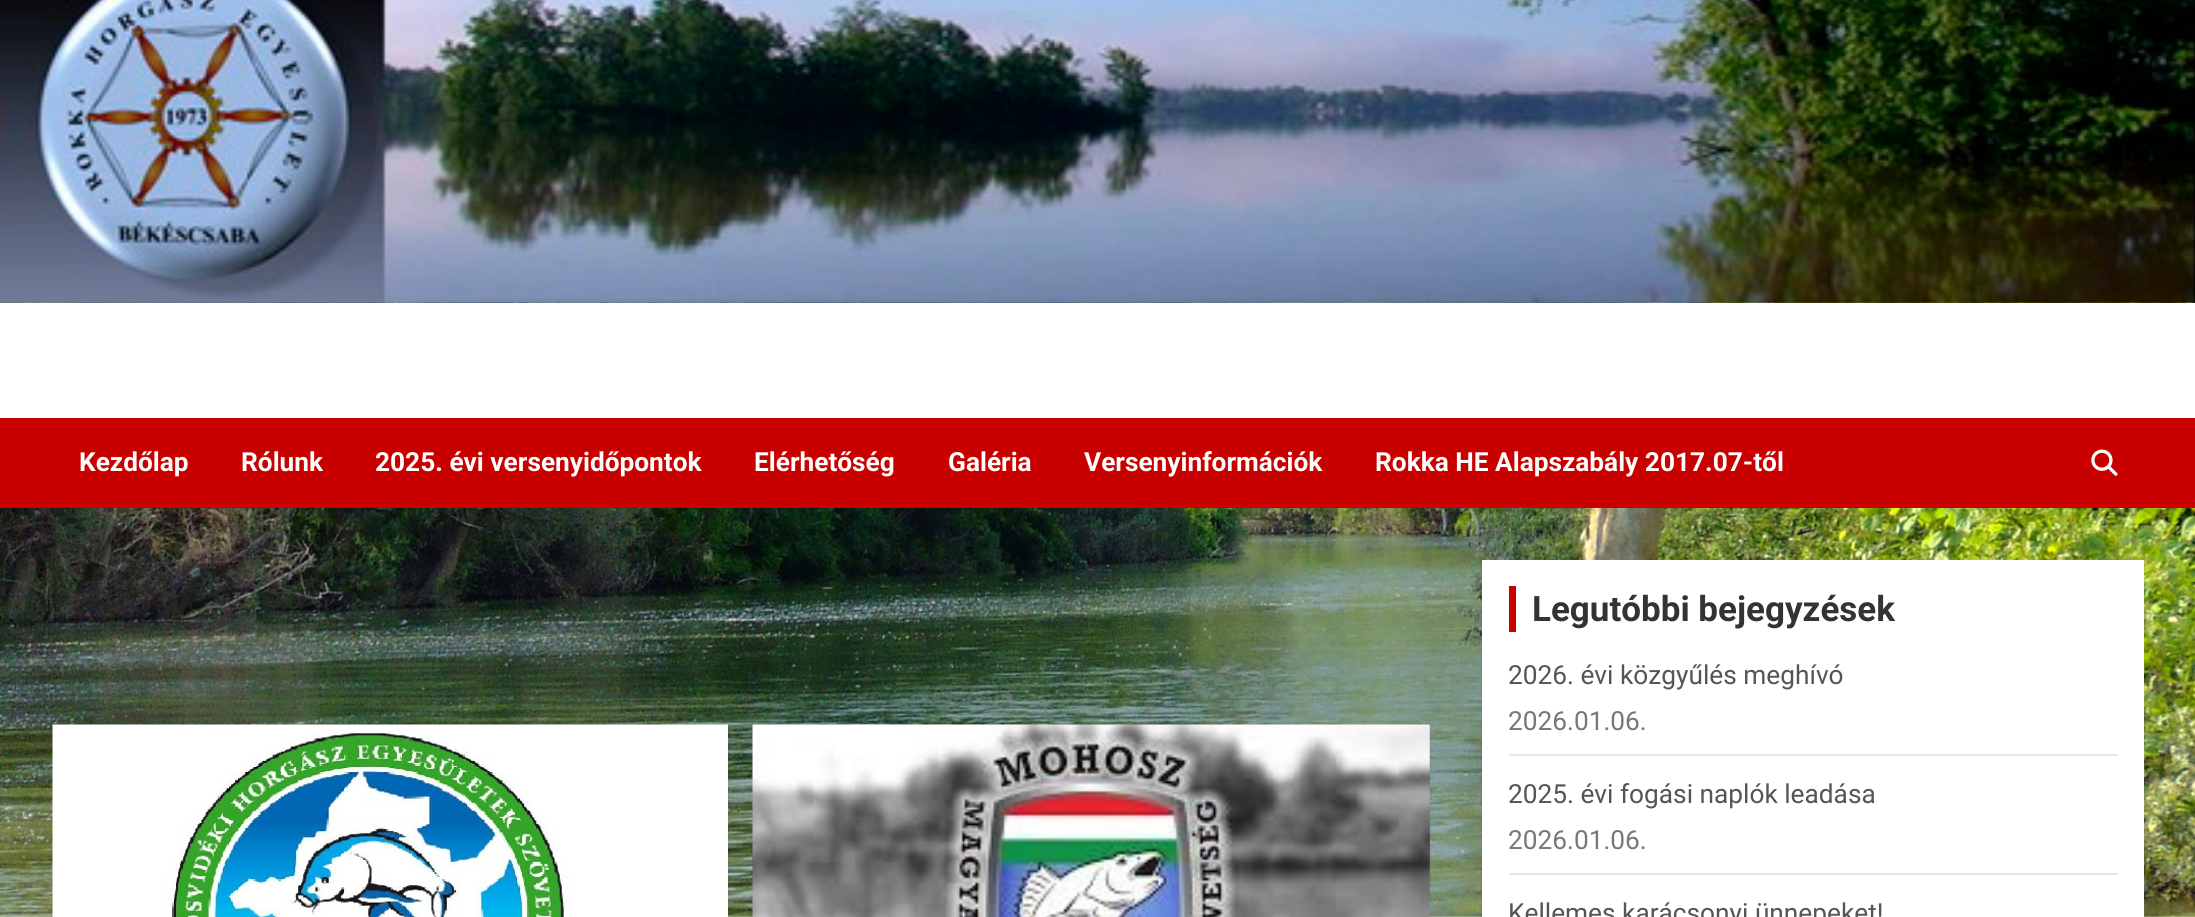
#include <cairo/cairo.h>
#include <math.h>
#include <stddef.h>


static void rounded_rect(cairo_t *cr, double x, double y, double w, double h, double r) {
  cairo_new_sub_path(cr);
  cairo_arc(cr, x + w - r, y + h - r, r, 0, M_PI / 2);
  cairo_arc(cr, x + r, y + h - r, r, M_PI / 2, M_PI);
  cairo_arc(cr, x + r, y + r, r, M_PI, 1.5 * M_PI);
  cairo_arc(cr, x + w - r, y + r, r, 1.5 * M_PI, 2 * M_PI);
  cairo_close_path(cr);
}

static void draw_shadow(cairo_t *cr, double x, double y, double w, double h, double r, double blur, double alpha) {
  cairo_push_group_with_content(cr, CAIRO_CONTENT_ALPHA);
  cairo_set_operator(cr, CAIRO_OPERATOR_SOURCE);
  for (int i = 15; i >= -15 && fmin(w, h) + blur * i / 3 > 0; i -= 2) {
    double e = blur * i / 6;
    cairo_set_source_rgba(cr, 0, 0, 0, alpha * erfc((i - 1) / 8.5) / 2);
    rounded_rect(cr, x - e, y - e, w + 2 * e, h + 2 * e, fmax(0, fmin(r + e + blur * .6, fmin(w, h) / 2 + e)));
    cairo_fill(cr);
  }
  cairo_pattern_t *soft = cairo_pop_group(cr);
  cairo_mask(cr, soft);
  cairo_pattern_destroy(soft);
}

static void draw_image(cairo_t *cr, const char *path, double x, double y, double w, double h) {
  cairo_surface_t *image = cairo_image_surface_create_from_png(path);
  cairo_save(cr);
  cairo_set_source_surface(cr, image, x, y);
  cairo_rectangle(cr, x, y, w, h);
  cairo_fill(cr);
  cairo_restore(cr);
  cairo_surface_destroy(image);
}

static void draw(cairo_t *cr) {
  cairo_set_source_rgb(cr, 1, 1, 1);
  cairo_paint(cr);
  draw_image(cr, "images/1.png", 0, 302, 2195, 615);
  draw_image(cr, "images/2.png", 0, 0, 2195, 303);
  cairo_set_source_rgb(cr, 1, 1, 1);
  cairo_rectangle(cr, 0, 303, 2195, 115);
  cairo_fill(cr);
  cairo_set_source_rgb(cr, 200 / 255.0, 0, 0);
  cairo_rectangle(cr, 0, 418, 2195, 90);
  cairo_fill(cr);
  draw_image(cr, "images/3.png", 2091, 449, 27, 27);
  cairo_set_source_rgb(cr, 0, 0, 0);
  draw_shadow(cr, 53, 726, 675, 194, 0, 1, 0.1);
  draw_image(cr, "images/4.png", 52, 724, 676, 193);
  draw_shadow(cr, 753, 726, 677, 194, 0, 1, 0.1);
  draw_image(cr, "images/5.png", 752, 724, 678, 193);
  draw_shadow(cr, 1482, 562, 662, 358, 0, 1, 0.1);
  cairo_set_source_rgb(cr, 1, 1, 1);
  cairo_rectangle(cr, 1482, 560, 662, 357);
  cairo_fill(cr);
  cairo_set_source_rgb(cr, 200 / 255.0, 0, 0);
  cairo_rectangle(cr, 1509, 586, 7, 46);
  cairo_fill(cr);
  cairo_set_source_rgb(cr, 230 / 255.0, 230 / 255.0, 230 / 255.0);
  cairo_rectangle(cr, 1509, 754, 609, 2);
  cairo_fill(cr);
  cairo_rectangle(cr, 1509, 873, 609, 2);
  cairo_fill(cr);
  cairo_select_font_face(cr, "Roboto", CAIRO_FONT_SLANT_NORMAL, CAIRO_FONT_WEIGHT_BOLD);
  cairo_set_font_size(cr, 26.25);
  cairo_set_source_rgb(cr, 1, 1, 1);
  cairo_move_to(cr, 79, 471);
  cairo_show_text(cr, "Kezdőlap");
  cairo_move_to(cr, 241, 471);
  cairo_show_text(cr, "Rólunk");
  cairo_move_to(cr, 375, 471);
  cairo_show_text(cr, "2025. évi versenyidőpontok");
  cairo_move_to(cr, 754, 471);
  cairo_show_text(cr, "Elérhetőség");
  cairo_move_to(cr, 948, 471);
  cairo_show_text(cr, "Galéria");
  cairo_move_to(cr, 1084, 471);
  cairo_show_text(cr, "Versenyinformációk");
  cairo_move_to(cr, 1375, 471);
  cairo_show_text(cr, "Rokka HE Alapszabály 2017.07-től");
  cairo_set_font_size(cr, 35);
  cairo_set_source_rgb(cr, 51 / 255.0, 51 / 255.0, 51 / 255.0);
  cairo_move_to(cr, 1532, 621);
  cairo_show_text(cr, "Legutóbbi bejegyzések");
  cairo_select_font_face(cr, "Roboto", CAIRO_FONT_SLANT_NORMAL, CAIRO_FONT_WEIGHT_NORMAL);
  cairo_set_font_size(cr, 26.25);
  cairo_set_source_rgb(cr, 85 / 255.0, 85 / 255.0, 85 / 255.0);
  cairo_move_to(cr, 1508, 684);
  cairo_show_text(cr, "2026. évi közgyűlés meghívó");
  cairo_set_source_rgb(cr, 119 / 255.0, 119 / 255.0, 119 / 255.0);
  cairo_move_to(cr, 1508, 730);
  cairo_show_text(cr, "2026.01.06.");
  cairo_set_source_rgb(cr, 85 / 255.0, 85 / 255.0, 85 / 255.0);
  cairo_move_to(cr, 1508, 803);
  cairo_show_text(cr, "2025. évi fogási naplók leadása");
  cairo_set_source_rgb(cr, 119 / 255.0, 119 / 255.0, 119 / 255.0);
  cairo_move_to(cr, 1508, 849);
  cairo_show_text(cr, "2026.01.06.");
  cairo_set_source_rgb(cr, 85 / 255.0, 85 / 255.0, 85 / 255.0);
  cairo_move_to(cr, 1508, 922);
  cairo_show_text(cr, "Kellemes karácsonyi ünnepeket!");
}

int main(void) {
  cairo_surface_t *surface = cairo_image_surface_create(CAIRO_FORMAT_RGB24, 2195, 917);
  cairo_t *cr = cairo_create(surface);
  cairo_font_options_t *options = cairo_font_options_create();
  cairo_font_options_set_hint_metrics(options, CAIRO_HINT_METRICS_OFF);
  cairo_font_options_set_hint_style(options, CAIRO_HINT_STYLE_NONE);
  cairo_set_font_options(cr, options);
  cairo_set_miter_limit(cr, 4);
  draw(cr);
  cairo_surface_write_to_png(surface, "out.png");
  cairo_font_options_destroy(options);
  cairo_destroy(cr);
  cairo_surface_destroy(surface);
  return 0;
}
